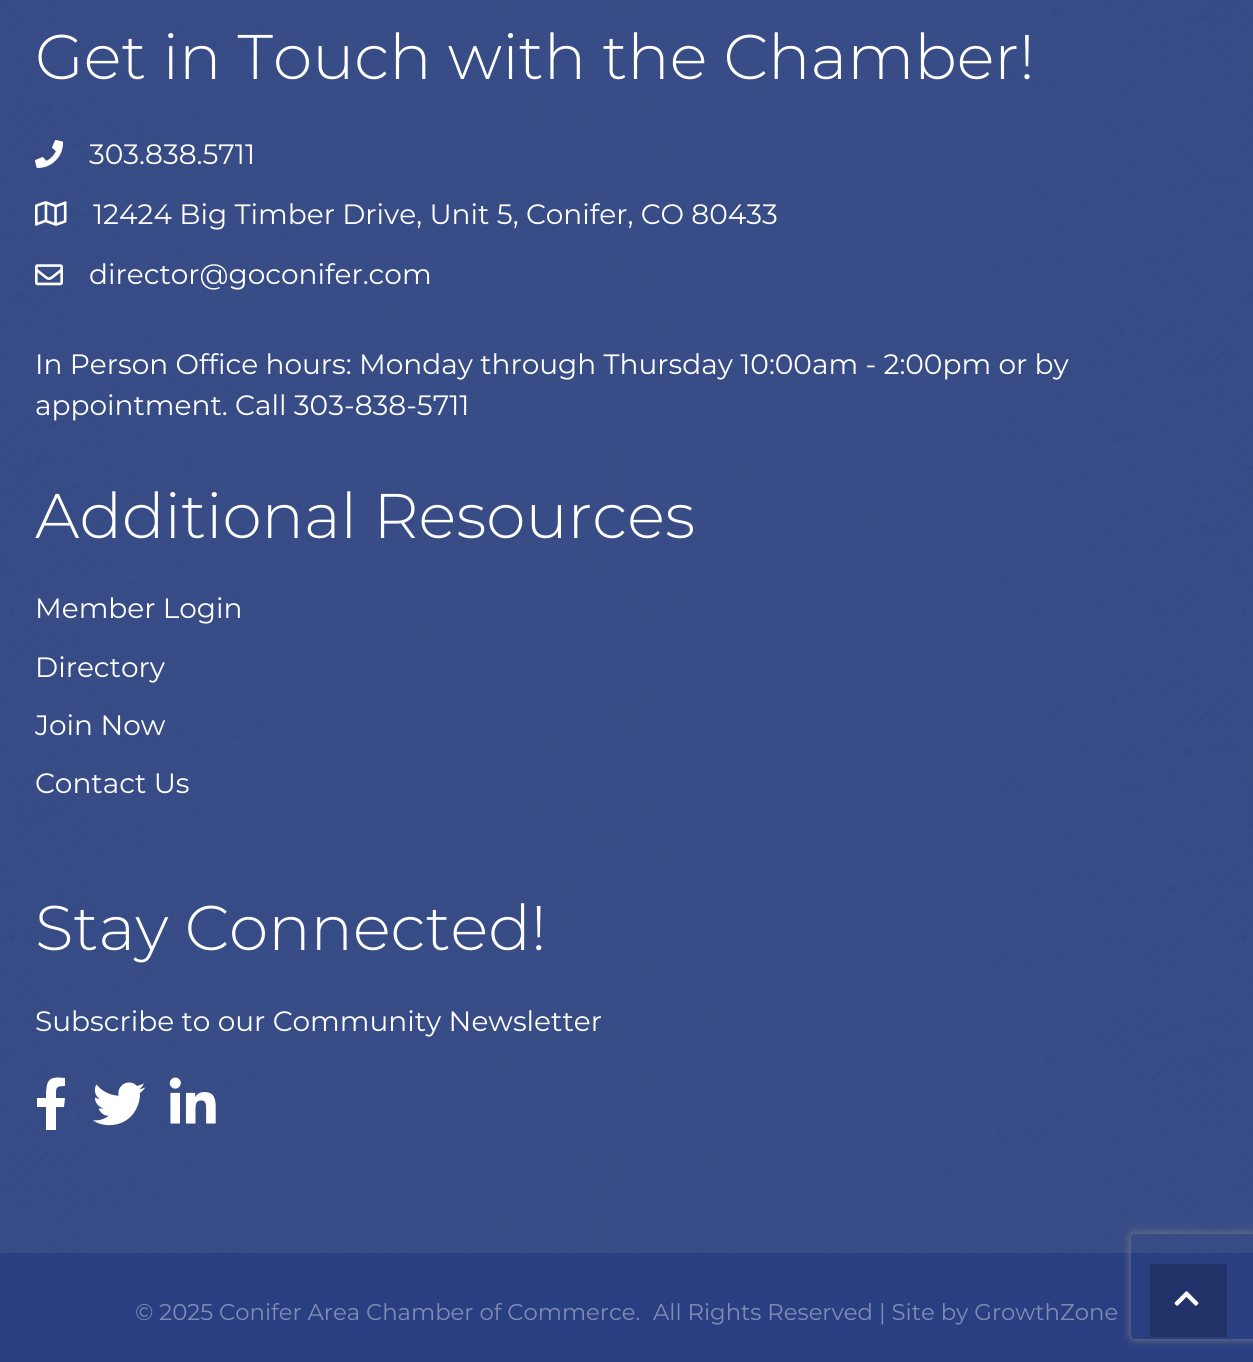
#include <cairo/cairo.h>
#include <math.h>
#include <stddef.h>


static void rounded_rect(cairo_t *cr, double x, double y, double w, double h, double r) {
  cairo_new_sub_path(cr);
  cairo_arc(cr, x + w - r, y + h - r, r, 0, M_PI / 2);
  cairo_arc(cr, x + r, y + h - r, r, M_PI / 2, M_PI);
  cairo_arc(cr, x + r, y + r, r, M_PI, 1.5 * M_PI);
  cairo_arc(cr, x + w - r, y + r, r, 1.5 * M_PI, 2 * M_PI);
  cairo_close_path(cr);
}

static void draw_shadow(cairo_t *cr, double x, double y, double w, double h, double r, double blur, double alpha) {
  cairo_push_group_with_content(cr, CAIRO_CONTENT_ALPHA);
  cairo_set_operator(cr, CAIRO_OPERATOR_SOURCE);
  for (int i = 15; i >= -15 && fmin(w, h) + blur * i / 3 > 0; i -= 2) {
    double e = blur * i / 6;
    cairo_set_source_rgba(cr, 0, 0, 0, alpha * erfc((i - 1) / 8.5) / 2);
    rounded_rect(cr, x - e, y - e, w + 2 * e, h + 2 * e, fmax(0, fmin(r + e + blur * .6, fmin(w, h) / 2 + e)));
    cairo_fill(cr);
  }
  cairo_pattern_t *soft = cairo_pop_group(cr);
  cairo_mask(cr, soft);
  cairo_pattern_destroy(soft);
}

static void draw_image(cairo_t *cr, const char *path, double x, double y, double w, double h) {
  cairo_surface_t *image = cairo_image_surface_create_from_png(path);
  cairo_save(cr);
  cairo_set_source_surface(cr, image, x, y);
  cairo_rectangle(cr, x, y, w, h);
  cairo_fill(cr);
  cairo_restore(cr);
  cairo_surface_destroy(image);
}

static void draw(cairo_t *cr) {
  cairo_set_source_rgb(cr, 1, 1, 1);
  cairo_paint(cr);
  draw_image(cr, "images/1.png", 0, 0, 1253, 1253);
  draw_image(cr, "images/2.png", 35, 140, 29, 28);
  draw_image(cr, "images/3.png", 35, 201, 32, 25);
  draw_image(cr, "images/4.png", 35, 264, 28, 22);
  cairo_set_source_rgb(cr, 1, 1, 1);
  cairo_new_path(cr);
  cairo_move_to(cr, 64, 1107);
  cairo_line_to(cr, 56, 1107);
  cairo_line_to(cr, 56, 1130);
  cairo_line_to(cr, 46, 1130);
  cairo_line_to(cr, 46, 1107);
  cairo_line_to(cr, 37, 1107);
  cairo_line_to(cr, 37, 1098);
  cairo_line_to(cr, 46, 1098);
  cairo_curve_to(cr, 46, 1080, 48, 1076, 65, 1078);
  cairo_line_to(cr, 65, 1086);
  cairo_curve_to(cr, 55, 1086, 56, 1088, 56, 1098);
  cairo_line_to(cr, 65, 1098);
  cairo_close_path(cr);
  cairo_fill(cr);
  draw_image(cr, "images/5.png", 93, 1082, 53, 44);
  draw_image(cr, "images/6.png", 169, 1077, 47, 47);
  cairo_set_source_rgb(cr, 41 / 255.0, 63 / 255.0, 130 / 255.0);
  cairo_rectangle(cr, 0, 1253, 1253, 109);
  cairo_fill(cr);
  cairo_save(cr);
  cairo_set_fill_rule(cr, CAIRO_FILL_RULE_EVEN_ODD);
  cairo_new_path(cr);
  cairo_move_to(cr, 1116, 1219);
  cairo_line_to(cr, 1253, 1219);
  cairo_line_to(cr, 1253, 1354);
  cairo_line_to(cr, 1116, 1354);
  cairo_close_path(cr);
  cairo_move_to(cr, 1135, 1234);
  cairo_line_to(cr, 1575, 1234);
  cairo_curve_to(cr, 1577, 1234, 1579, 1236, 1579, 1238);
  cairo_line_to(cr, 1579, 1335);
  cairo_curve_to(cr, 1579, 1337, 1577, 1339, 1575, 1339);
  cairo_line_to(cr, 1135, 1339);
  cairo_curve_to(cr, 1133, 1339, 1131, 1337, 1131, 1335);
  cairo_line_to(cr, 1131, 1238);
  cairo_curve_to(cr, 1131, 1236, 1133, 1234, 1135, 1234);
  cairo_close_path(cr);
  cairo_clip(cr);
  cairo_set_source_rgb(cr, 128 / 255.0, 128 / 255.0, 128 / 255.0);
  draw_shadow(cr, 1131, 1234, 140, 105, 4, 4.5, 1);
  cairo_restore(cr);
  cairo_set_source_rgb(cr, 33 / 255.0, 50 / 255.0, 104 / 255.0);
  cairo_rectangle(cr, 1150, 1264, 77, 73);
  cairo_fill(cr);
  draw_image(cr, "images/7.png", 1174, 1291, 25, 15);
  cairo_select_font_face(cr, "Montserrat Light", CAIRO_FONT_SLANT_NORMAL, CAIRO_FONT_WEIGHT_NORMAL);
  cairo_set_font_size(cr, 63);
  cairo_set_source_rgb(cr, 1, 1, 1);
  cairo_move_to(cr, 35, 79);
  cairo_show_text(cr, "Get in Touch with the Chamber!");
  cairo_select_font_face(cr, "Montserrat", CAIRO_FONT_SLANT_NORMAL, CAIRO_FONT_WEIGHT_NORMAL);
  cairo_set_font_size(cr, 28);
  cairo_move_to(cr, 89, 164);
  cairo_show_text(cr, "303.838.5711");
  cairo_move_to(cr, 93, 224);
  cairo_show_text(cr, "12424 Big Timber Drive, Unit 5, Conifer, CO 80433");
  cairo_move_to(cr, 89, 284);
  cairo_show_text(cr, "director@goconifer.com");
  cairo_move_to(cr, 35, 374);
  cairo_show_text(cr, "In Person Office hours: Monday through Thursday 10:00am - 2:00pm or by");
  cairo_move_to(cr, 35, 415);
  cairo_show_text(cr, "appointment. Call 303-838-5711");
  cairo_select_font_face(cr, "Montserrat Light", CAIRO_FONT_SLANT_NORMAL, CAIRO_FONT_WEIGHT_NORMAL);
  cairo_set_font_size(cr, 63);
  cairo_move_to(cr, 35, 538);
  cairo_show_text(cr, "Additional Resources");
  cairo_select_font_face(cr, "Montserrat", CAIRO_FONT_SLANT_NORMAL, CAIRO_FONT_WEIGHT_NORMAL);
  cairo_set_font_size(cr, 28);
  cairo_move_to(cr, 35, 618);
  cairo_show_text(cr, "Member Login");
  cairo_move_to(cr, 35, 677);
  cairo_show_text(cr, "Directory");
  cairo_move_to(cr, 35, 735);
  cairo_show_text(cr, "Join Now");
  cairo_move_to(cr, 35, 793);
  cairo_show_text(cr, "Contact Us");
  cairo_select_font_face(cr, "Montserrat Light", CAIRO_FONT_SLANT_NORMAL, CAIRO_FONT_WEIGHT_NORMAL);
  cairo_set_font_size(cr, 63);
  cairo_move_to(cr, 35, 950);
  cairo_show_text(cr, "Stay Connected!");
  cairo_select_font_face(cr, "Montserrat", CAIRO_FONT_SLANT_NORMAL, CAIRO_FONT_WEIGHT_NORMAL);
  cairo_set_font_size(cr, 28);
  cairo_move_to(cr, 35, 1031);
  cairo_show_text(cr, "Subscribe to our Community Newsletter");
  cairo_set_font_size(cr, 22.75);
  cairo_set_source_rgb(cr, 127 / 255.0, 140 / 255.0, 180 / 255.0);
  cairo_move_to(cr, 135, 1320);
  cairo_show_text(cr, "© 2025 Conifer Area Chamber of Commerce.");
  cairo_move_to(cr, 653, 1320);
  cairo_show_text(cr, "All Rights Reserved | Site by GrowthZone");
}

int main(void) {
  cairo_surface_t *surface = cairo_image_surface_create(CAIRO_FORMAT_RGB24, 1253, 1362);
  cairo_t *cr = cairo_create(surface);
  cairo_font_options_t *options = cairo_font_options_create();
  cairo_font_options_set_hint_metrics(options, CAIRO_HINT_METRICS_OFF);
  cairo_font_options_set_hint_style(options, CAIRO_HINT_STYLE_NONE);
  cairo_set_font_options(cr, options);
  cairo_set_miter_limit(cr, 4);
  draw(cr);
  cairo_surface_write_to_png(surface, "out.png");
  cairo_font_options_destroy(options);
  cairo_destroy(cr);
  cairo_surface_destroy(surface);
  return 0;
}
